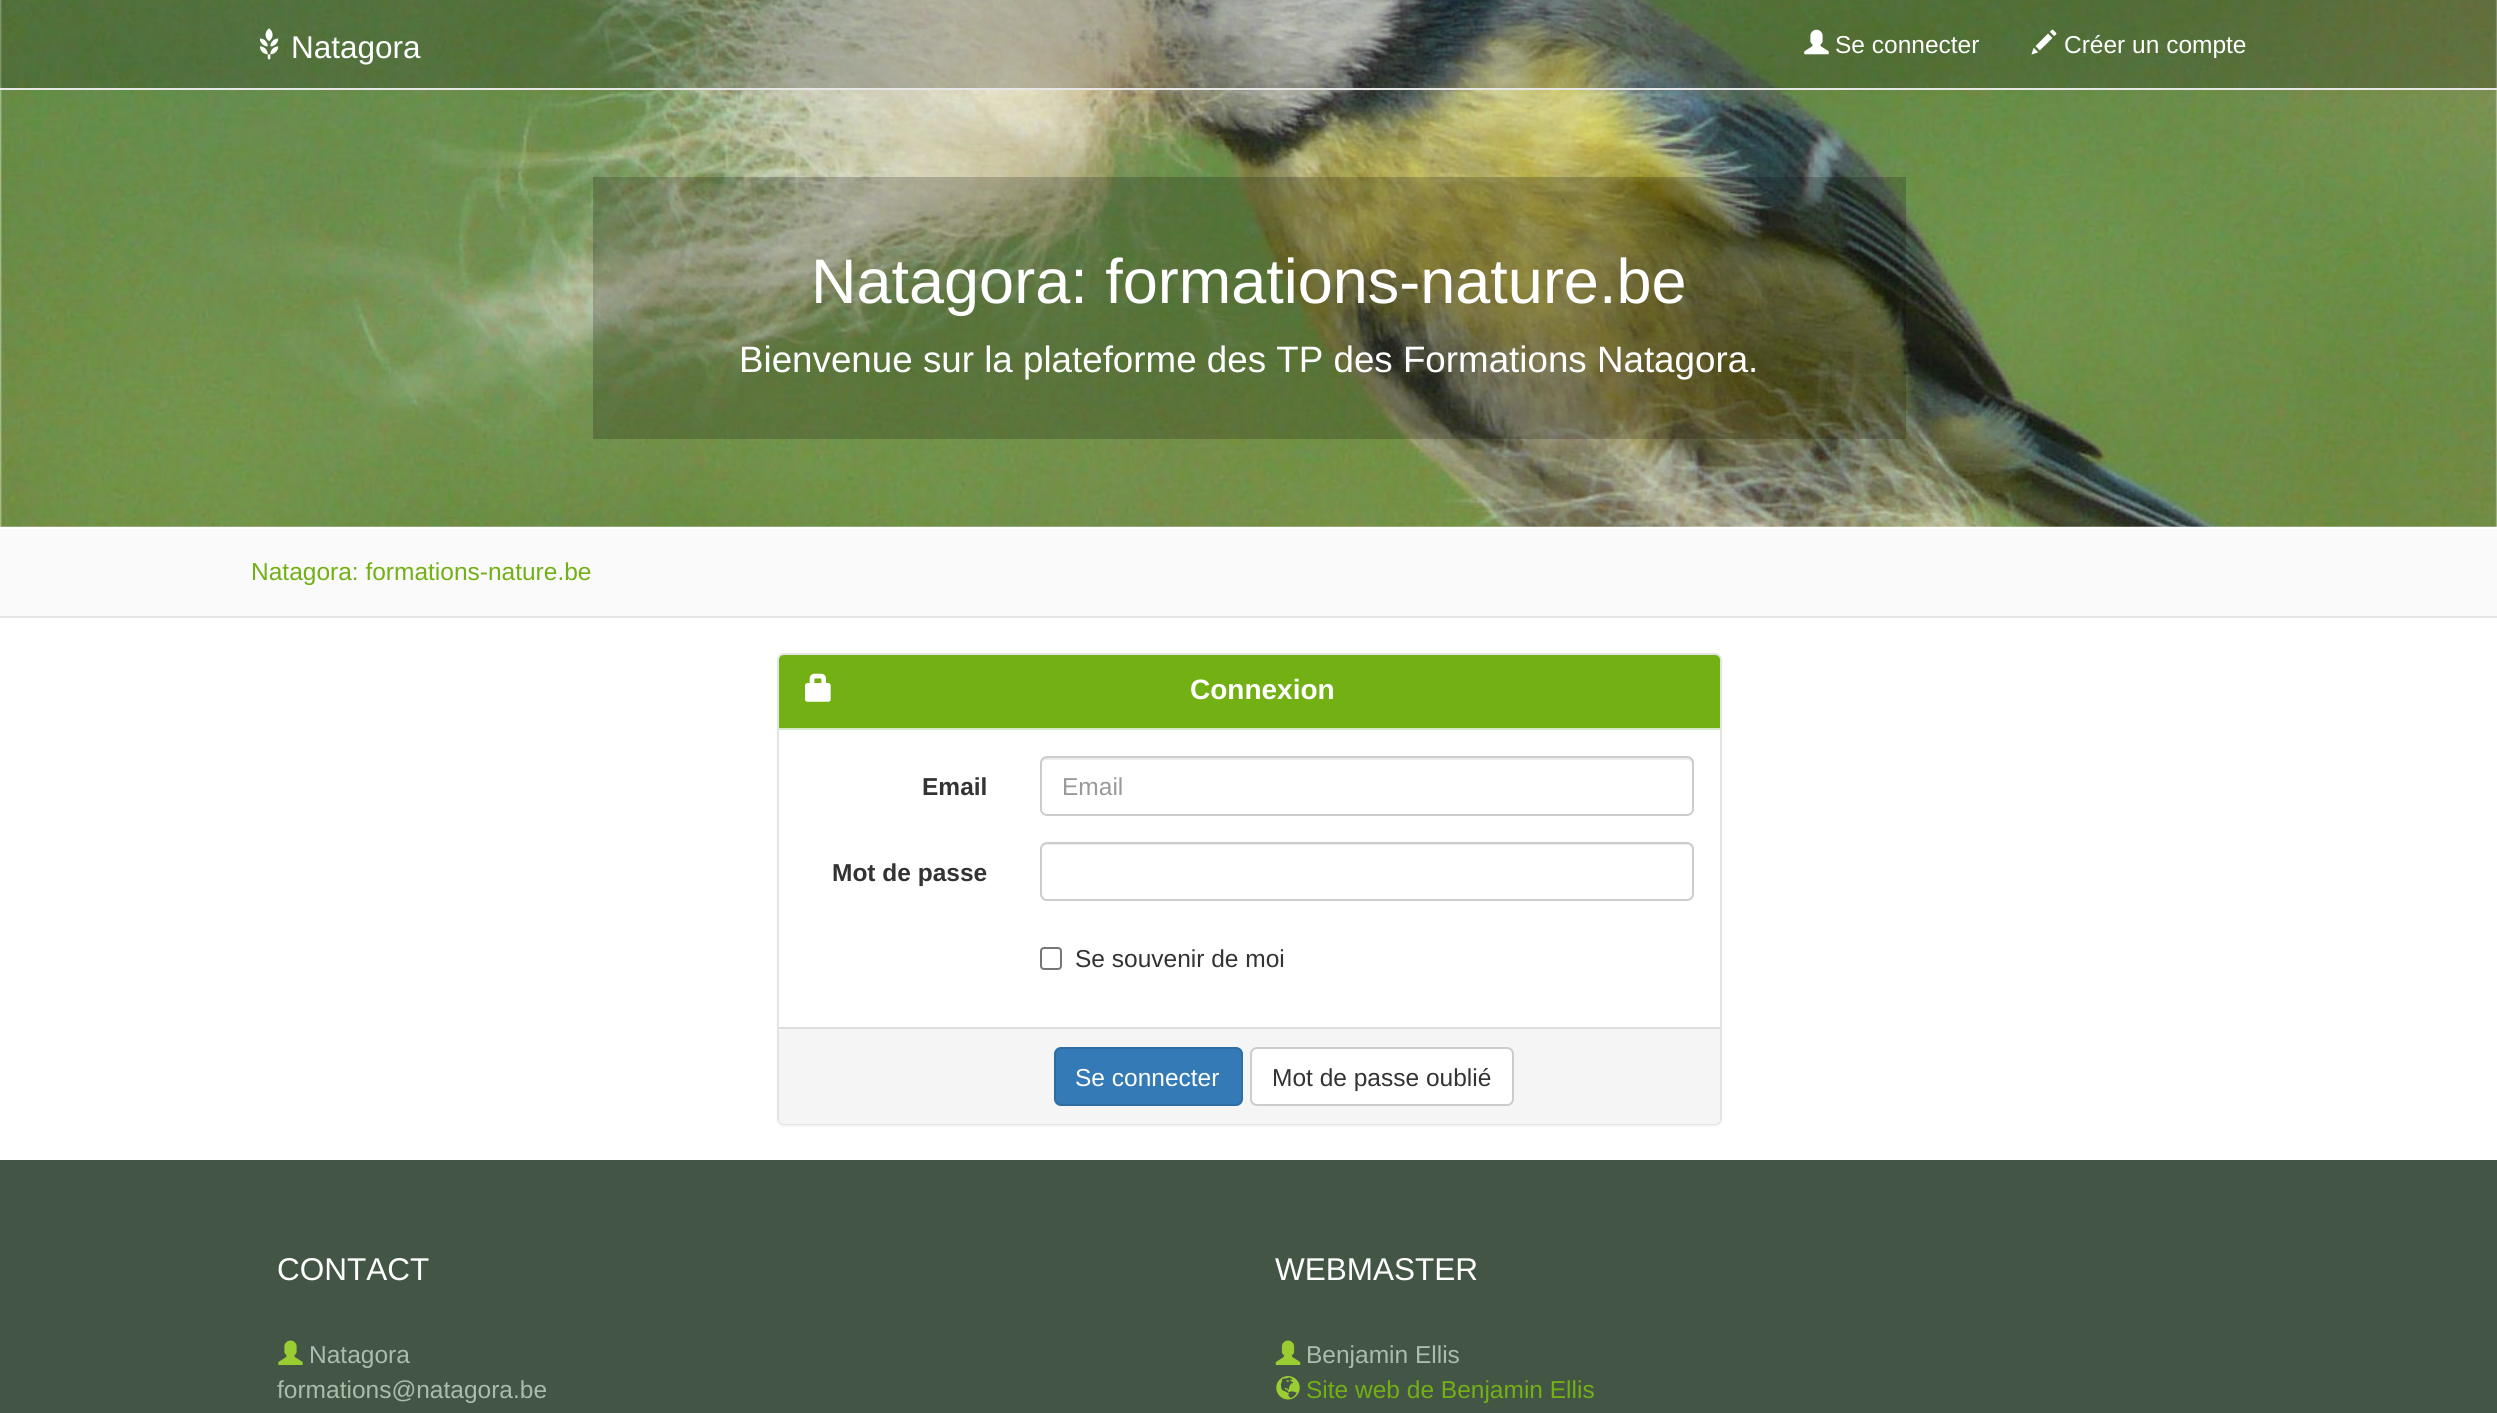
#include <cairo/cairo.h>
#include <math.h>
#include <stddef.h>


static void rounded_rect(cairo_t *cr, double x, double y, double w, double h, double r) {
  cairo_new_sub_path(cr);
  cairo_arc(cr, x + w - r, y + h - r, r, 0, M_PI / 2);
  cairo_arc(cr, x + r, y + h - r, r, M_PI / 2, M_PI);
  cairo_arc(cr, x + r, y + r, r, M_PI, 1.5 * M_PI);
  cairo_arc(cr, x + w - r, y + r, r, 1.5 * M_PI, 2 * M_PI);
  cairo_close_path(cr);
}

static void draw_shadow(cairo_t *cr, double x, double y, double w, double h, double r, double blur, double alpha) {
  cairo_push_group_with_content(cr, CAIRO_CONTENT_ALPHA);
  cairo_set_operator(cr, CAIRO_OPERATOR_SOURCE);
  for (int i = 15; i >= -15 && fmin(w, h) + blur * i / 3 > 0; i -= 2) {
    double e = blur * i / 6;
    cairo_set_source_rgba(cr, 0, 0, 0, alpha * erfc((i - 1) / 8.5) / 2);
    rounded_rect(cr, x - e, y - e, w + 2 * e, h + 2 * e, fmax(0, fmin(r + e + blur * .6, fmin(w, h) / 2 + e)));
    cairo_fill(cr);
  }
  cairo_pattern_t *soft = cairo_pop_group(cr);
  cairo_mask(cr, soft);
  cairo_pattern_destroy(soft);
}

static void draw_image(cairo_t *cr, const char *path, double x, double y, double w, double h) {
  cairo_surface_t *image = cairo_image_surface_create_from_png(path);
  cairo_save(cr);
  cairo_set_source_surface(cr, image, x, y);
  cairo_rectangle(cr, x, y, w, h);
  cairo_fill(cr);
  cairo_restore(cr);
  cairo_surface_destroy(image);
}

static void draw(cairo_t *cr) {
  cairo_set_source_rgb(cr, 1, 1, 1);
  cairo_paint(cr);
  draw_image(cr, "images/1.png", 0, 0, 2497, 527);
  cairo_set_source_rgba(cr, 0, 0, 0, 0.2);
  cairo_rectangle(cr, 0, 0, 2497, 88);
  cairo_fill(cr);
  cairo_set_source_rgb(cr, 231 / 255.0, 231 / 255.0, 231 / 255.0);
  cairo_rectangle(cr, 0, 88, 2497, 2);
  cairo_fill(cr);
  draw_image(cr, "images/2.png", 259, 28, 20, 32);
  draw_image(cr, "images/3.png", 1804, 29, 25, 26);
  draw_image(cr, "images/4.png", 2031, 29, 26, 26);
  cairo_set_source_rgba(cr, 0, 0, 0, 0.2);
  cairo_rectangle(cr, 593, 177, 1313, 262);
  cairo_fill(cr);
  cairo_set_source_rgb(cr, 250 / 255.0, 250 / 255.0, 250 / 255.0);
  cairo_rectangle(cr, 0, 529, 2497, 87);
  cairo_fill(cr);
  cairo_set_source_rgb(cr, 229 / 255.0, 229 / 255.0, 229 / 255.0);
  cairo_rectangle(cr, 0, 616, 2497, 2);
  cairo_fill(cr);
  cairo_set_source_rgb(cr, 0, 0, 0);
  draw_shadow(cr, 777, 655, 945, 472, 7, 1, 0.05);
  cairo_set_source_rgb(cr, 1, 1, 1);
  rounded_rect(cr, 778, 654, 943, 470, 6);
  cairo_fill_preserve(cr);
  cairo_set_source_rgb(cr, 228 / 255.0, 228 / 255.0, 228 / 255.0);
  cairo_stroke(cr);
  cairo_set_source_rgb(cr, 115 / 255.0, 176 / 255.0, 20 / 255.0);
  cairo_new_path(cr);
  cairo_move_to(cr, 784, 655);
  cairo_line_to(cr, 1715, 655);
  cairo_curve_to(cr, 1718, 655, 1720, 657, 1720, 660);
  cairo_line_to(cr, 1720, 730);
  cairo_line_to(cr, 779, 730);
  cairo_line_to(cr, 779, 660);
  cairo_curve_to(cr, 779, 657, 781, 655, 784, 655);
  cairo_close_path(cr);
  cairo_fill(cr);
  cairo_set_source_rgb(cr, 214 / 255.0, 233 / 255.0, 198 / 255.0);
  cairo_rectangle(cr, 779, 728, 941, 2);
  cairo_fill(cr);
  draw_image(cr, "images/5.png", 805, 673, 26, 29);
  cairo_set_source_rgb(cr, 236 / 255.0, 236 / 255.0, 236 / 255.0);
  cairo_new_path(cr);
  cairo_move_to(cr, 1046, 760);
  cairo_line_to(cr, 1687, 760);
  cairo_curve_to(cr, 1690, 760, 1692, 762, 1692, 765);
  cairo_line_to(cr, 1692, 763);
  cairo_curve_to(cr, 1692, 760, 1690, 758, 1687, 758);
  cairo_line_to(cr, 1046, 758);
  cairo_curve_to(cr, 1043, 758, 1041, 760, 1041, 763);
  cairo_line_to(cr, 1041, 765);
  cairo_curve_to(cr, 1041, 762, 1044, 760, 1046, 760);
  cairo_close_path(cr);
  cairo_fill(cr);
  rounded_rect(cr, 1041, 757, 652, 58, 6);
  cairo_set_source_rgb(cr, 204 / 255.0, 204 / 255.0, 204 / 255.0);
  cairo_stroke(cr);
  cairo_set_source_rgb(cr, 236 / 255.0, 236 / 255.0, 236 / 255.0);
  cairo_new_path(cr);
  cairo_move_to(cr, 1046, 845);
  cairo_line_to(cr, 1687, 845);
  cairo_curve_to(cr, 1690, 845, 1692, 848, 1692, 850);
  cairo_line_to(cr, 1692, 849);
  cairo_curve_to(cr, 1692, 846, 1690, 844, 1687, 844);
  cairo_line_to(cr, 1046, 844);
  cairo_curve_to(cr, 1043, 844, 1041, 846, 1041, 849);
  cairo_line_to(cr, 1041, 850);
  cairo_curve_to(cr, 1041, 848, 1044, 845, 1046, 845);
  cairo_close_path(cr);
  cairo_fill(cr);
  rounded_rect(cr, 1041, 843, 652, 57, 6);
  cairo_set_source_rgb(cr, 204 / 255.0, 204 / 255.0, 204 / 255.0);
  cairo_stroke(cr);
  rounded_rect(cr, 1041, 948, 20, 21, 3);
  cairo_set_source_rgb(cr, 118 / 255.0, 118 / 255.0, 118 / 255.0);
  cairo_stroke(cr);
  cairo_set_source_rgb(cr, 245 / 255.0, 245 / 255.0, 245 / 255.0);
  cairo_new_path(cr);
  cairo_move_to(cr, 779, 1027);
  cairo_line_to(cr, 1720, 1027);
  cairo_line_to(cr, 1720, 1119);
  cairo_curve_to(cr, 1720, 1122, 1718, 1124, 1715, 1124);
  cairo_line_to(cr, 784, 1124);
  cairo_curve_to(cr, 781, 1124, 779, 1122, 779, 1119);
  cairo_close_path(cr);
  cairo_fill(cr);
  cairo_set_source_rgb(cr, 221 / 255.0, 221 / 255.0, 221 / 255.0);
  cairo_rectangle(cr, 779, 1027, 941, 2);
  cairo_fill(cr);
  cairo_set_source_rgb(cr, 51 / 255.0, 122 / 255.0, 183 / 255.0);
  rounded_rect(cr, 1055, 1048, 187, 57, 6);
  cairo_fill_preserve(cr);
  cairo_set_source_rgb(cr, 46 / 255.0, 109 / 255.0, 164 / 255.0);
  cairo_stroke(cr);
  cairo_set_source_rgb(cr, 1, 1, 1);
  rounded_rect(cr, 1251, 1048, 262, 57, 6);
  cairo_fill_preserve(cr);
  cairo_set_source_rgb(cr, 204 / 255.0, 204 / 255.0, 204 / 255.0);
  cairo_stroke(cr);
  cairo_set_source_rgb(cr, 67 / 255.0, 85 / 255.0, 69 / 255.0);
  cairo_rectangle(cr, 0, 1160, 2497, 253);
  cairo_fill(cr);
  draw_image(cr, "images/6.png", 278, 1340, 25, 25);
  draw_image(cr, "images/7.png", 1275, 1340, 26, 25);
  draw_image(cr, "images/8.png", 1276, 1376, 24, 24);
  cairo_select_font_face(cr, "Liberation Sans", CAIRO_FONT_SLANT_NORMAL, CAIRO_FONT_WEIGHT_NORMAL);
  cairo_set_font_size(cr, 31.5);
  cairo_set_source_rgb(cr, 1, 1, 1);
  cairo_move_to(cr, 291, 58);
  cairo_show_text(cr, "Natagora");
  cairo_set_font_size(cr, 24.5);
  cairo_move_to(cr, 1835, 53);
  cairo_show_text(cr, "Se connecter");
  cairo_move_to(cr, 2064, 53);
  cairo_show_text(cr, "Créer un compte");
  cairo_set_font_size(cr, 63);
  cairo_move_to(cr, 811, 303);
  cairo_show_text(cr, "Natagora: formations-nature.be");
  cairo_set_font_size(cr, 36.75);
  cairo_move_to(cr, 739, 372);
  cairo_show_text(cr, "Bienvenue sur la plateforme des TP des Formations Natagora.");
  cairo_set_font_size(cr, 24.5);
  cairo_set_source_rgb(cr, 115 / 255.0, 176 / 255.0, 20 / 255.0);
  cairo_move_to(cr, 251, 580);
  cairo_show_text(cr, "Natagora: formations-nature.be");
  cairo_select_font_face(cr, "Liberation Sans", CAIRO_FONT_SLANT_NORMAL, CAIRO_FONT_WEIGHT_BOLD);
  cairo_set_font_size(cr, 28);
  cairo_set_source_rgb(cr, 1, 1, 1);
  cairo_move_to(cr, 1190, 699);
  cairo_show_text(cr, "Connexion");
  cairo_set_font_size(cr, 24.5);
  cairo_set_source_rgb(cr, 51 / 255.0, 51 / 255.0, 51 / 255.0);
  cairo_move_to(cr, 922, 795);
  cairo_show_text(cr, "Email");
  cairo_select_font_face(cr, "Liberation Sans", CAIRO_FONT_SLANT_NORMAL, CAIRO_FONT_WEIGHT_NORMAL);
  cairo_set_source_rgb(cr, 153 / 255.0, 153 / 255.0, 153 / 255.0);
  cairo_move_to(cr, 1062, 795);
  cairo_show_text(cr, "Email");
  cairo_select_font_face(cr, "Liberation Sans", CAIRO_FONT_SLANT_NORMAL, CAIRO_FONT_WEIGHT_BOLD);
  cairo_set_source_rgb(cr, 51 / 255.0, 51 / 255.0, 51 / 255.0);
  cairo_move_to(cr, 832, 881);
  cairo_show_text(cr, "Mot de passe");
  cairo_select_font_face(cr, "Liberation Sans", CAIRO_FONT_SLANT_NORMAL, CAIRO_FONT_WEIGHT_NORMAL);
  cairo_move_to(cr, 1075, 967);
  cairo_show_text(cr, "Se souvenir de moi");
  cairo_set_source_rgb(cr, 1, 1, 1);
  cairo_move_to(cr, 1075, 1086);
  cairo_show_text(cr, "Se connecter");
  cairo_set_source_rgb(cr, 51 / 255.0, 51 / 255.0, 51 / 255.0);
  cairo_move_to(cr, 1272, 1086);
  cairo_show_text(cr, "Mot de passe oublié");
  cairo_set_font_size(cr, 31.5);
  cairo_set_source_rgb(cr, 1, 1, 1);
  cairo_move_to(cr, 277, 1280);
  cairo_show_text(cr, "CONTACT");
  cairo_set_font_size(cr, 24.5);
  cairo_set_source_rgb(cr, 170 / 255.0, 189 / 255.0, 172 / 255.0);
  cairo_move_to(cr, 309, 1363);
  cairo_show_text(cr, "Natagora");
  cairo_move_to(cr, 277, 1398);
  cairo_show_text(cr, "formations@natagora.be");
  cairo_set_font_size(cr, 31.5);
  cairo_set_source_rgb(cr, 1, 1, 1);
  cairo_move_to(cr, 1275, 1280);
  cairo_show_text(cr, "WEBMASTER");
  cairo_set_font_size(cr, 24.5);
  cairo_set_source_rgb(cr, 170 / 255.0, 189 / 255.0, 172 / 255.0);
  cairo_move_to(cr, 1306, 1363);
  cairo_show_text(cr, "Benjamin Ellis");
  cairo_set_source_rgb(cr, 115 / 255.0, 176 / 255.0, 20 / 255.0);
  cairo_move_to(cr, 1306, 1398);
  cairo_show_text(cr, "Site web de Benjamin Ellis");
}

int main(void) {
  cairo_surface_t *surface = cairo_image_surface_create(CAIRO_FORMAT_RGB24, 2497, 1413);
  cairo_t *cr = cairo_create(surface);
  cairo_font_options_t *options = cairo_font_options_create();
  cairo_font_options_set_hint_metrics(options, CAIRO_HINT_METRICS_OFF);
  cairo_font_options_set_hint_style(options, CAIRO_HINT_STYLE_NONE);
  cairo_set_font_options(cr, options);
  cairo_set_miter_limit(cr, 4);
  draw(cr);
  cairo_surface_write_to_png(surface, "out.png");
  cairo_font_options_destroy(options);
  cairo_destroy(cr);
  cairo_surface_destroy(surface);
  return 0;
}
